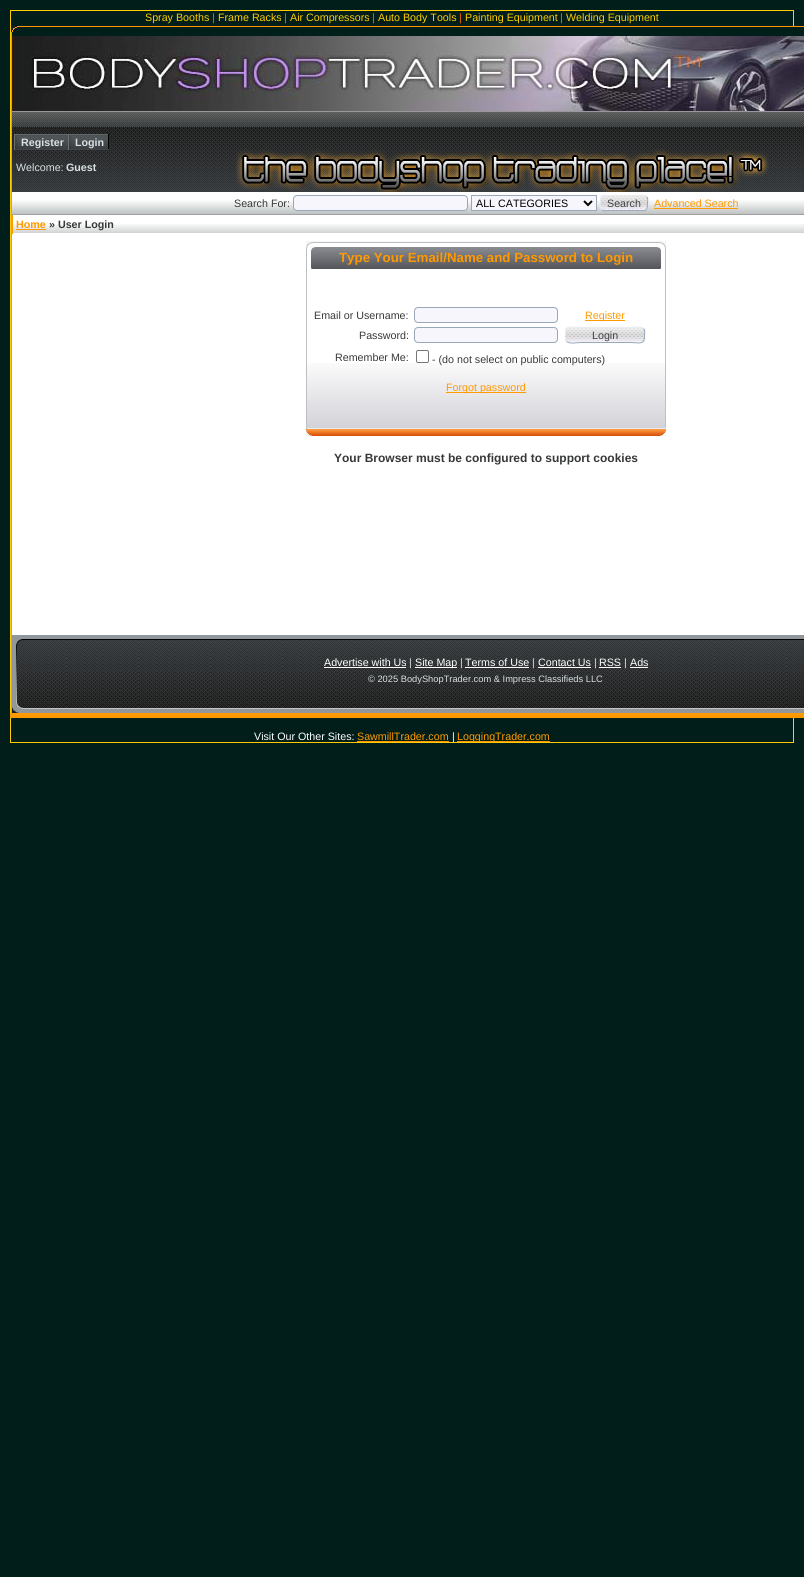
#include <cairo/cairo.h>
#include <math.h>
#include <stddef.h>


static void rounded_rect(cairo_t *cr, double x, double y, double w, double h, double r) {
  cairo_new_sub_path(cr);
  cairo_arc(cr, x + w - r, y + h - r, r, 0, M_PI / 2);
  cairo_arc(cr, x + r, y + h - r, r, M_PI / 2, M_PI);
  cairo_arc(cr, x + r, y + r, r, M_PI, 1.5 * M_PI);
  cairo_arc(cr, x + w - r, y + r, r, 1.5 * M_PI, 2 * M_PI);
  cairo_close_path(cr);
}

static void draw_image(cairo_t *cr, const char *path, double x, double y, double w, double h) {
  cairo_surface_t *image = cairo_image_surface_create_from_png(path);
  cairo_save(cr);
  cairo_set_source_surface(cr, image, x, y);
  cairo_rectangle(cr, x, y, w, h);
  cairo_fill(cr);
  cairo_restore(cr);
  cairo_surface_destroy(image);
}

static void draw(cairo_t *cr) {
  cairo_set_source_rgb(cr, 1 / 255.0, 30 / 255.0, 26 / 255.0);
  cairo_paint(cr);
  cairo_rectangle(cr, 10.5, 10.5, 783, 732);
  cairo_set_source_rgb(cr, 1, 204 / 255.0, 0);
  cairo_set_line_width(cr, 1);
  cairo_stroke(cr);
  draw_image(cr, "images/1.png", 11, 26, 793, 10);
  draw_image(cr, "images/2.png", 11, 26, 6, 6);
  draw_image(cr, "images/3.png", 11, 36, 793, 75);
  cairo_set_source_rgb(cr, 154 / 255.0, 152 / 255.0, 156 / 255.0);
  cairo_rectangle(cr, 11, 111, 793, 1);
  cairo_fill(cr);
  draw_image(cr, "images/4.png", 12, 112, 792, 15);
  cairo_set_source_rgb(cr, 1, 153 / 255.0, 0);
  cairo_rectangle(cr, 11, 112, 1, 606);
  cairo_fill(cr);
  draw_image(cr, "images/5.png", 12, 127, 792, 65);
  draw_image(cr, "images/6.png", 15, 135, 53, 14);
  draw_image(cr, "images/7.png", 69, 135, 39, 14);
  cairo_set_source_rgb(cr, 98 / 255.0, 102 / 255.0, 104 / 255.0);
  cairo_rectangle(cr, 14, 134, 95, 1);
  cairo_fill(cr);
  cairo_set_source_rgb(cr, 66 / 255.0, 70 / 255.0, 74 / 255.0);
  cairo_rectangle(cr, 14, 149, 55, 1);
  cairo_fill(cr);
  cairo_set_source_rgb(cr, 110 / 255.0, 112 / 255.0, 114 / 255.0);
  cairo_rectangle(cr, 14, 134, 1, 16);
  cairo_fill(cr);
  cairo_set_source_rgb(cr, 0, 0, 0);
  cairo_rectangle(cr, 108, 134, 1, 16);
  cairo_fill(cr);
  cairo_set_source_rgb(cr, 66 / 255.0, 70 / 255.0, 74 / 255.0);
  cairo_rectangle(cr, 68, 149, 41, 1);
  cairo_fill(cr);
  cairo_set_source_rgb(cr, 110 / 255.0, 112 / 255.0, 114 / 255.0);
  cairo_rectangle(cr, 68, 134, 1, 16);
  cairo_fill(cr);
  draw_image(cr, "images/8.png", 12, 192, 792, 22);
  cairo_set_source_rgb(cr, 160 / 255.0, 160 / 255.0, 162 / 255.0);
  cairo_rectangle(cr, 12, 214, 792, 1);
  cairo_fill(cr);
  cairo_set_source_rgb(cr, 246 / 255.0, 246 / 255.0, 252 / 255.0);
  rounded_rect(cr, 293.5, 195.5, 174, 15, 3.5);
  cairo_fill_preserve(cr);
  cairo_set_source_rgb(cr, 152 / 255.0, 168 / 255.0, 184 / 255.0);
  cairo_stroke(cr);
  cairo_set_source_rgb(cr, 246 / 255.0, 246 / 255.0, 252 / 255.0);
  cairo_rectangle(cr, 471.5, 195.5, 125, 15);
  cairo_fill_preserve(cr);
  cairo_set_source_rgb(cr, 152 / 255.0, 168 / 255.0, 184 / 255.0);
  cairo_stroke(cr);
  cairo_new_path(cr);
  cairo_move_to(cr, 584, 201);
  cairo_line_to(cr, 588, 205);
  cairo_line_to(cr, 592, 201);
  cairo_set_source_rgb(cr, 0, 0, 0);
  cairo_set_line_width(cr, 2);
  cairo_stroke(cr);
  draw_image(cr, "images/9.png", 600, 195, 48, 15);
  cairo_new_path(cr);
  cairo_move_to(cr, 646.5, 196.5);
  cairo_curve_to(cr, 648.5, 198.5, 647.5, 201.5, 647.5, 204);
  cairo_curve_to(cr, 647.5, 212, 645.5, 210.5, 637.5, 210.5);
  cairo_line_to(cr, 610.5, 210.5);
  cairo_curve_to(cr, 609, 210.5, 603.5, 211.5, 601.5, 209.5);
  cairo_set_source_rgb(cr, 152 / 255.0, 168 / 255.0, 184 / 255.0);
  cairo_set_line_width(cr, 1);
  cairo_stroke(cr);
  cairo_new_path(cr);
  cairo_move_to(cr, 601.5, 209.5);
  cairo_curve_to(cr, 599.5, 207.5, 600.5, 204.5, 600.5, 202);
  cairo_curve_to(cr, 600.5, 194, 602.5, 195.5, 610.5, 195.5);
  cairo_line_to(cr, 637.5, 195.5);
  cairo_curve_to(cr, 639, 195.5, 644.5, 194.5, 646.5, 196.5);
  cairo_set_source_rgb(cr, 230 / 255.0, 236 / 255.0, 240 / 255.0);
  cairo_stroke(cr);
  cairo_set_source_rgb(cr, 1, 153 / 255.0, 0);
  cairo_rectangle(cr, 654, 208, 84, 1);
  cairo_fill(cr);
  cairo_set_source_rgb(cr, 1, 1, 1);
  cairo_rectangle(cr, 12, 215, 792, 420);
  cairo_fill(cr);
  draw_image(cr, "images/10.png", 13, 224, 791, 9);
  cairo_set_source_rgb(cr, 1, 153 / 255.0, 0);
  cairo_rectangle(cr, 12, 215, 1, 19);
  cairo_fill(cr);
  cairo_rectangle(cr, 16, 229, 30, 1);
  cairo_fill(cr);
  draw_image(cr, "images/11.png", 306, 241, 360, 28);
  draw_image(cr, "images/12.png", 306, 242, 9, 27);
  draw_image(cr, "images/13.png", 657, 242, 9, 27);
  draw_image(cr, "images/14.png", 307, 363, 358, 65);
  cairo_set_source_rgb(cr, 188 / 255.0, 192 / 255.0, 195 / 255.0);
  cairo_rectangle(cr, 665, 269, 1, 160);
  cairo_fill(cr);
  cairo_set_source_rgb(cr, 234 / 255.0, 234 / 255.0, 240 / 255.0);
  cairo_rectangle(cr, 306, 428, 360, 1);
  cairo_fill(cr);
  cairo_set_source_rgb(cr, 188 / 255.0, 192 / 255.0, 195 / 255.0);
  cairo_rectangle(cr, 306, 269, 1, 160);
  cairo_fill(cr);
  cairo_set_source_rgb(cr, 246 / 255.0, 246 / 255.0, 252 / 255.0);
  rounded_rect(cr, 414.5, 307.5, 143, 15, 3.5);
  cairo_fill_preserve(cr);
  cairo_set_source_rgb(cr, 152 / 255.0, 168 / 255.0, 184 / 255.0);
  cairo_stroke(cr);
  cairo_set_source_rgb(cr, 1, 153 / 255.0, 0);
  cairo_rectangle(cr, 585, 320, 40, 1);
  cairo_fill(cr);
  cairo_set_source_rgb(cr, 246 / 255.0, 246 / 255.0, 252 / 255.0);
  rounded_rect(cr, 414.5, 327.5, 143, 15, 3.5);
  cairo_fill_preserve(cr);
  cairo_set_source_rgb(cr, 152 / 255.0, 168 / 255.0, 184 / 255.0);
  cairo_stroke(cr);
  draw_image(cr, "images/15.png", 565, 327, 80, 15);
  cairo_new_path(cr);
  cairo_move_to(cr, 643.5, 328.5);
  cairo_curve_to(cr, 645.5, 330.5, 644.5, 333.5, 644.5, 336);
  cairo_curve_to(cr, 644.5, 345.5, 639.5, 342.5, 629, 342.5);
  cairo_line_to(cr, 581, 342.5);
  cairo_curve_to(cr, 576.5, 342.5, 571.5, 344, 567.5, 342);
  cairo_line_to(cr, 566.5, 341.5);
  cairo_stroke(cr);
  cairo_new_path(cr);
  cairo_move_to(cr, 566.5, 341.5);
  cairo_curve_to(cr, 564.5, 339.5, 565.5, 336.5, 565.5, 334);
  cairo_curve_to(cr, 565.5, 324.5, 570.5, 327.5, 581, 327.5);
  cairo_line_to(cr, 629, 327.5);
  cairo_curve_to(cr, 633.5, 327.5, 638.5, 326, 642.5, 328);
  cairo_line_to(cr, 643.5, 328.5);
  cairo_set_source_rgb(cr, 230 / 255.0, 236 / 255.0, 240 / 255.0);
  cairo_stroke(cr);
  rounded_rect(cr, 416.5, 350.5, 12, 12, 1.5);
  cairo_set_source_rgb(cr, 118 / 255.0, 118 / 255.0, 118 / 255.0);
  cairo_stroke(cr);
  cairo_set_source_rgb(cr, 1, 153 / 255.0, 0);
  cairo_rectangle(cr, 446, 392, 80, 1);
  cairo_fill(cr);
  draw_image(cr, "images/16.png", 306, 429, 360, 7);
  draw_image(cr, "images/17.png", 306, 430, 6, 6);
  draw_image(cr, "images/18.png", 660, 430, 6, 6);
  draw_image(cr, "images/19.png", 12, 635, 792, 78);
  cairo_rectangle(cr, 10, 713, 794, 5);
  cairo_fill(cr);
  draw_image(cr, "images/20.png", 12, 639, 18, 74);
  cairo_set_source_rgb(cr, 1, 1, 1);
  cairo_rectangle(cr, 324, 667, 82, 1);
  cairo_fill(cr);
  cairo_rectangle(cr, 415, 667, 42, 1);
  cairo_fill(cr);
  cairo_rectangle(cr, 465, 667, 64, 1);
  cairo_fill(cr);
  cairo_rectangle(cr, 538, 667, 53, 1);
  cairo_fill(cr);
  cairo_rectangle(cr, 599, 667, 22, 1);
  cairo_fill(cr);
  cairo_rectangle(cr, 630, 667, 18, 1);
  cairo_fill(cr);
  cairo_set_source_rgb(cr, 1, 153 / 255.0, 0);
  cairo_rectangle(cr, 357, 741, 92, 1);
  cairo_fill(cr);
  cairo_rectangle(cr, 457, 741, 93, 1);
  cairo_fill(cr);
  cairo_select_font_face(cr, "Liberation Sans", CAIRO_FONT_SLANT_NORMAL, CAIRO_FONT_WEIGHT_NORMAL);
  cairo_set_font_size(cr, 10.7);
  cairo_set_source_rgb(cr, 1, 204 / 255.0, 0);
  cairo_move_to(cr, 145, 21);
  cairo_show_text(cr, "Spray Booths");
  cairo_set_source_rgb(cr, 1, 102 / 255.0, 0);
  cairo_move_to(cr, 212, 21);
  cairo_show_text(cr, "|");
  cairo_set_source_rgb(cr, 1, 204 / 255.0, 0);
  cairo_move_to(cr, 218, 21);
  cairo_show_text(cr, "Frame Racks");
  cairo_set_source_rgb(cr, 1, 102 / 255.0, 0);
  cairo_move_to(cr, 284, 21);
  cairo_show_text(cr, "|");
  cairo_set_source_rgb(cr, 1, 204 / 255.0, 0);
  cairo_move_to(cr, 290, 21);
  cairo_show_text(cr, "Air Compressors");
  cairo_set_source_rgb(cr, 1, 102 / 255.0, 0);
  cairo_move_to(cr, 372, 21);
  cairo_show_text(cr, "|");
  cairo_set_source_rgb(cr, 1, 204 / 255.0, 0);
  cairo_move_to(cr, 378, 21);
  cairo_show_text(cr, "Auto Body Tools");
  cairo_set_source_rgb(cr, 1, 102 / 255.0, 0);
  cairo_move_to(cr, 459, 21);
  cairo_show_text(cr, "|");
  cairo_set_source_rgb(cr, 1, 204 / 255.0, 0);
  cairo_move_to(cr, 465, 21);
  cairo_show_text(cr, "Painting Equipment");
  cairo_set_source_rgb(cr, 1, 102 / 255.0, 0);
  cairo_move_to(cr, 560, 21);
  cairo_show_text(cr, "|");
  cairo_set_source_rgb(cr, 1, 204 / 255.0, 0);
  cairo_move_to(cr, 566, 21);
  cairo_show_text(cr, "Welding Equipment");
  cairo_select_font_face(cr, "Liberation Sans", CAIRO_FONT_SLANT_NORMAL, CAIRO_FONT_WEIGHT_BOLD);
  cairo_set_source_rgb(cr, 216 / 255.0, 224 / 255.0, 228 / 255.0);
  cairo_move_to(cr, 21, 146);
  cairo_show_text(cr, "Register");
  cairo_move_to(cr, 75, 146);
  cairo_show_text(cr, "Login");
  cairo_select_font_face(cr, "Liberation Sans", CAIRO_FONT_SLANT_NORMAL, CAIRO_FONT_WEIGHT_NORMAL);
  cairo_move_to(cr, 16, 171);
  cairo_show_text(cr, "Welcome:");
  cairo_select_font_face(cr, "Liberation Sans", CAIRO_FONT_SLANT_NORMAL, CAIRO_FONT_WEIGHT_BOLD);
  cairo_move_to(cr, 66, 171);
  cairo_show_text(cr, "Guest");
  cairo_select_font_face(cr, "Liberation Sans", CAIRO_FONT_SLANT_NORMAL, CAIRO_FONT_WEIGHT_NORMAL);
  cairo_set_source_rgb(cr, 55 / 255.0, 56 / 255.0, 57 / 255.0);
  cairo_move_to(cr, 234, 207);
  cairo_show_text(cr, "Search For:");
  cairo_set_source_rgb(cr, 0, 0, 0);
  cairo_move_to(cr, 476, 207);
  cairo_show_text(cr, "ALL CATEGORIES");
  cairo_set_source_rgb(cr, 66 / 255.0, 66 / 255.0, 66 / 255.0);
  cairo_move_to(cr, 607, 207);
  cairo_show_text(cr, "Search");
  cairo_set_source_rgb(cr, 1, 153 / 255.0, 0);
  cairo_move_to(cr, 654, 207);
  cairo_show_text(cr, "Advanced Search");
  cairo_select_font_face(cr, "Liberation Sans", CAIRO_FONT_SLANT_NORMAL, CAIRO_FONT_WEIGHT_BOLD);
  cairo_move_to(cr, 16, 228);
  cairo_show_text(cr, "Home");
  cairo_set_source_rgb(cr, 55 / 255.0, 56 / 255.0, 57 / 255.0);
  cairo_move_to(cr, 49, 228);
  cairo_show_text(cr, "» User Login");
  cairo_set_font_size(cr, 13.3);
  cairo_set_source_rgb(cr, 1, 153 / 255.0, 0);
  cairo_move_to(cr, 339, 262);
  cairo_show_text(cr, "Type Your Email/Name and Password to Login");
  cairo_select_font_face(cr, "Liberation Sans", CAIRO_FONT_SLANT_NORMAL, CAIRO_FONT_WEIGHT_NORMAL);
  cairo_set_font_size(cr, 10.7);
  cairo_set_source_rgb(cr, 55 / 255.0, 56 / 255.0, 57 / 255.0);
  cairo_move_to(cr, 314, 319);
  cairo_show_text(cr, "Email or Username:");
  cairo_set_source_rgb(cr, 1, 153 / 255.0, 0);
  cairo_move_to(cr, 585, 319);
  cairo_show_text(cr, "Register");
  cairo_set_source_rgb(cr, 55 / 255.0, 56 / 255.0, 57 / 255.0);
  cairo_move_to(cr, 359, 339);
  cairo_show_text(cr, "Password:");
  cairo_set_source_rgb(cr, 66 / 255.0, 66 / 255.0, 66 / 255.0);
  cairo_move_to(cr, 592, 339);
  cairo_show_text(cr, "Login");
  cairo_set_source_rgb(cr, 55 / 255.0, 56 / 255.0, 57 / 255.0);
  cairo_move_to(cr, 335, 361);
  cairo_show_text(cr, "Remember Me:");
  cairo_move_to(cr, 432, 363);
  cairo_show_text(cr, "- (do not select on public computers)");
  cairo_set_source_rgb(cr, 1, 153 / 255.0, 0);
  cairo_move_to(cr, 446, 391);
  cairo_show_text(cr, "Forgot password");
  cairo_select_font_face(cr, "Liberation Sans", CAIRO_FONT_SLANT_NORMAL, CAIRO_FONT_WEIGHT_BOLD);
  cairo_set_font_size(cr, 12);
  cairo_set_source_rgb(cr, 55 / 255.0, 56 / 255.0, 57 / 255.0);
  cairo_move_to(cr, 334, 462);
  cairo_show_text(cr, "Your Browser must be configured to support cookies");
  cairo_select_font_face(cr, "Liberation Sans", CAIRO_FONT_SLANT_NORMAL, CAIRO_FONT_WEIGHT_NORMAL);
  cairo_set_font_size(cr, 10.7);
  cairo_set_source_rgb(cr, 1, 1, 1);
  cairo_move_to(cr, 324, 666);
  cairo_show_text(cr, "Advertise with Us");
  cairo_set_source_rgb(cr, 216 / 255.0, 224 / 255.0, 228 / 255.0);
  cairo_move_to(cr, 409, 666);
  cairo_show_text(cr, "|");
  cairo_set_source_rgb(cr, 1, 1, 1);
  cairo_move_to(cr, 415, 666);
  cairo_show_text(cr, "Site Map");
  cairo_set_source_rgb(cr, 216 / 255.0, 224 / 255.0, 228 / 255.0);
  cairo_move_to(cr, 460, 666);
  cairo_show_text(cr, "|");
  cairo_set_source_rgb(cr, 1, 1, 1);
  cairo_move_to(cr, 465, 666);
  cairo_show_text(cr, "Terms of Use");
  cairo_set_source_rgb(cr, 216 / 255.0, 224 / 255.0, 228 / 255.0);
  cairo_move_to(cr, 532, 666);
  cairo_show_text(cr, "|");
  cairo_set_source_rgb(cr, 1, 1, 1);
  cairo_move_to(cr, 538, 666);
  cairo_show_text(cr, "Contact Us");
  cairo_set_source_rgb(cr, 216 / 255.0, 224 / 255.0, 228 / 255.0);
  cairo_move_to(cr, 594, 666);
  cairo_show_text(cr, "|");
  cairo_set_source_rgb(cr, 1, 1, 1);
  cairo_move_to(cr, 599, 666);
  cairo_show_text(cr, "RSS");
  cairo_set_source_rgb(cr, 216 / 255.0, 224 / 255.0, 228 / 255.0);
  cairo_move_to(cr, 624, 666);
  cairo_show_text(cr, "|");
  cairo_set_source_rgb(cr, 1, 1, 1);
  cairo_move_to(cr, 630, 666);
  cairo_show_text(cr, "Ads");
  cairo_set_font_size(cr, 9.3);
  cairo_set_source_rgb(cr, 216 / 255.0, 224 / 255.0, 228 / 255.0);
  cairo_move_to(cr, 368, 682);
  cairo_show_text(cr, "© 2025 BodyShopTrader.com & Impress Classifieds LLC");
  cairo_set_font_size(cr, 10.7);
  cairo_set_source_rgb(cr, 1, 1, 1);
  cairo_move_to(cr, 254, 740);
  cairo_show_text(cr, "Visit Our Other Sites:");
  cairo_set_source_rgb(cr, 1, 153 / 255.0, 0);
  cairo_move_to(cr, 357, 740);
  cairo_show_text(cr, "SawmillTrader.com");
  cairo_set_source_rgb(cr, 1, 1, 1);
  cairo_move_to(cr, 452, 740);
  cairo_show_text(cr, "|");
  cairo_set_source_rgb(cr, 1, 153 / 255.0, 0);
  cairo_move_to(cr, 457, 740);
  cairo_show_text(cr, "LoggingTrader.com");
}

int main(void) {
  cairo_surface_t *surface = cairo_image_surface_create(CAIRO_FORMAT_RGB24, 804, 1577);
  cairo_t *cr = cairo_create(surface);
  cairo_font_options_t *options = cairo_font_options_create();
  cairo_font_options_set_hint_metrics(options, CAIRO_HINT_METRICS_OFF);
  cairo_font_options_set_hint_style(options, CAIRO_HINT_STYLE_NONE);
  cairo_set_font_options(cr, options);
  cairo_set_miter_limit(cr, 4);
  draw(cr);
  cairo_surface_write_to_png(surface, "out.png");
  cairo_font_options_destroy(options);
  cairo_destroy(cr);
  cairo_surface_destroy(surface);
  return 0;
}
